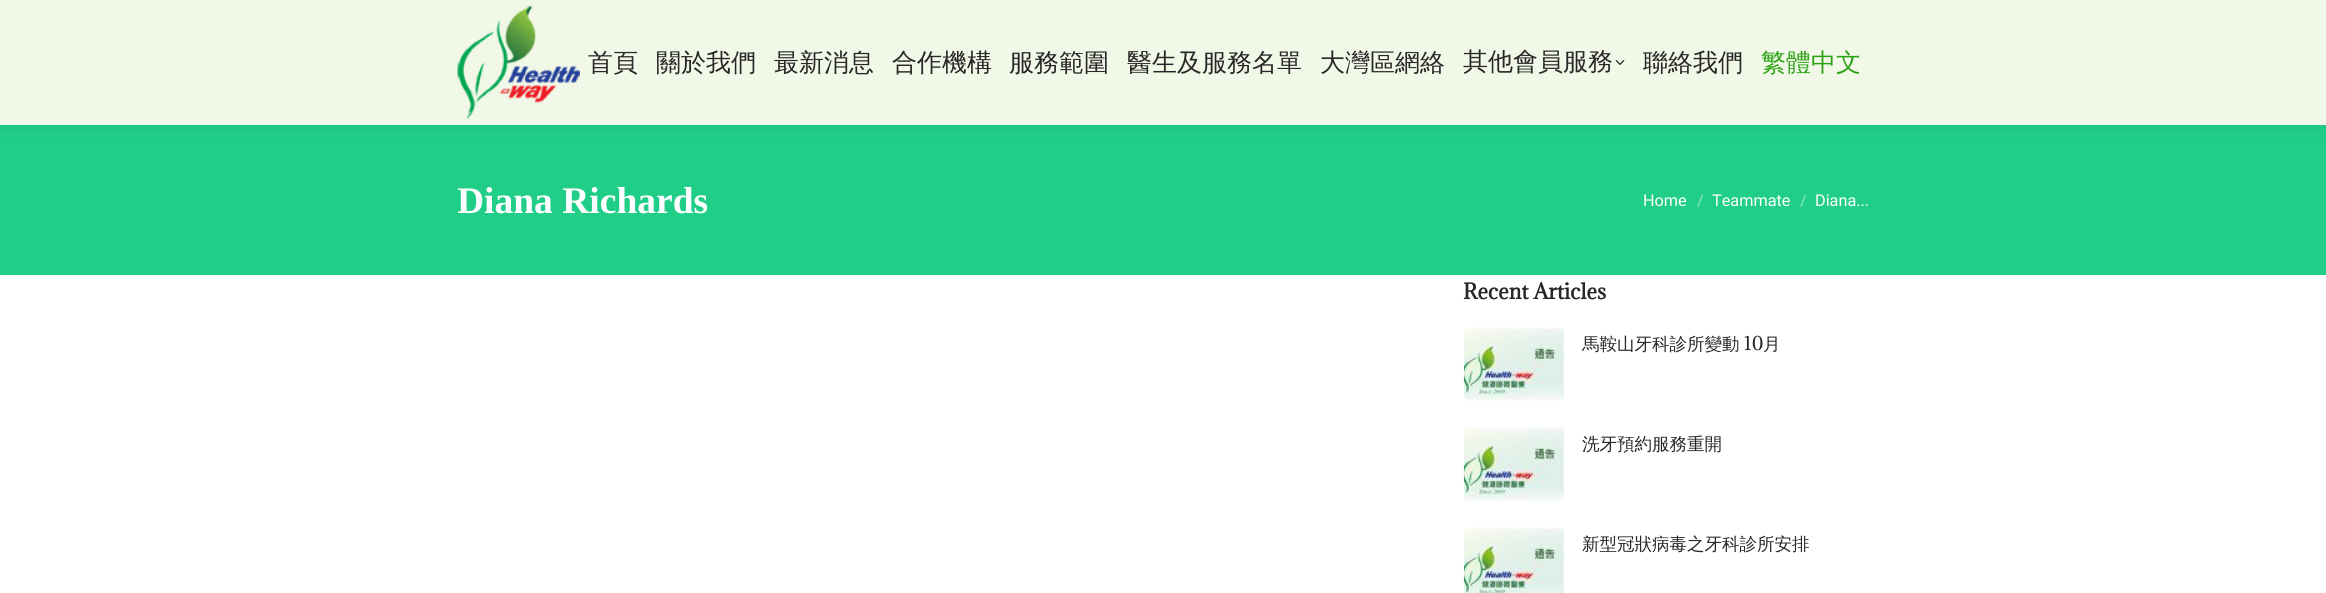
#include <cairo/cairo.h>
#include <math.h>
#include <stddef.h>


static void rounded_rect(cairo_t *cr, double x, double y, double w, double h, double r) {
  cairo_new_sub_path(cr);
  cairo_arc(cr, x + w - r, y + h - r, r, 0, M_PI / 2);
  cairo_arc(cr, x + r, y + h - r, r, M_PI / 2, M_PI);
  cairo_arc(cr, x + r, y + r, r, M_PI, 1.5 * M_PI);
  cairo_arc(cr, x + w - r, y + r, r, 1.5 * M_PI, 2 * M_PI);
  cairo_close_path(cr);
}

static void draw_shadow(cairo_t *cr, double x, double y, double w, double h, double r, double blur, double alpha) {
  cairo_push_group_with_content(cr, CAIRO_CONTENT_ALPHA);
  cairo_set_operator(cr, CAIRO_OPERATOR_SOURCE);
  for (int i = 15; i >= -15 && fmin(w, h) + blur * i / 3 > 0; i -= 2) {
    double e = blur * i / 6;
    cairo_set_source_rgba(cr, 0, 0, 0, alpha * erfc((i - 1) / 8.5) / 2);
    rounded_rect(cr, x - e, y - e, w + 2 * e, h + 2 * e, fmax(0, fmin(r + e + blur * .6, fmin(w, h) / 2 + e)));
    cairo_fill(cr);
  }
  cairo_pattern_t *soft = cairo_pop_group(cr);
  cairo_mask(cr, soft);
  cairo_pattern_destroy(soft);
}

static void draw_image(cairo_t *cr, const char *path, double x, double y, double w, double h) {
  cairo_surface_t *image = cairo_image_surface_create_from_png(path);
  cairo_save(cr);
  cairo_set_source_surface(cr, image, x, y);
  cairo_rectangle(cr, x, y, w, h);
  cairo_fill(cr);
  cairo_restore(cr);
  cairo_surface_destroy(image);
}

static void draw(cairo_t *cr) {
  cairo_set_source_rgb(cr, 1, 1, 1);
  cairo_paint(cr);
  cairo_set_source_rgb(cr, 32 / 255.0, 206 / 255.0, 136 / 255.0);
  cairo_rectangle(cr, 0, 125, 2326, 150);
  cairo_fill(cr);
  cairo_set_source_rgb(cr, 0, 0, 0);
  draw_shadow(cr, -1, -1, 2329, 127, 0, 9.5, 0.07);
  cairo_set_source_rgb(cr, 242 / 255.0, 248 / 255.0, 232 / 255.0);
  cairo_rectangle(cr, 0, 0, 2326, 125);
  cairo_fill(cr);
  draw_image(cr, "images/1.png", 457, 6, 123, 113);
  draw_image(cr, "images/2.png", 1615, 60, 10, 5);
  draw_image(cr, "images/3.png", 1463, 327, 101, 74);
  draw_image(cr, "images/3.png", 1463, 427, 101, 74);
  draw_image(cr, "images/4.png", 1463, 527, 101, 66);
  cairo_select_font_face(cr, "WenQuanYi Zen Hei Medium", CAIRO_FONT_SLANT_NORMAL, CAIRO_FONT_WEIGHT_NORMAL);
  cairo_set_font_size(cr, 25);
  cairo_set_source_rgb(cr, 39 / 255.0, 39 / 255.0, 39 / 255.0);
  cairo_move_to(cr, 588, 71);
  cairo_show_text(cr, "首頁");
  cairo_move_to(cr, 656, 71);
  cairo_show_text(cr, "關於我們");
  cairo_move_to(cr, 774, 71);
  cairo_show_text(cr, "最新消息");
  cairo_move_to(cr, 892, 71);
  cairo_show_text(cr, "合作機構");
  cairo_move_to(cr, 1009, 71);
  cairo_show_text(cr, "服務範圍");
  cairo_move_to(cr, 1127, 71);
  cairo_show_text(cr, "醫生及服務名單");
  cairo_move_to(cr, 1320, 71);
  cairo_show_text(cr, "大灣區網絡");
  cairo_move_to(cr, 1463, 70);
  cairo_show_text(cr, "其他會員服務");
  cairo_move_to(cr, 1643, 71);
  cairo_show_text(cr, "聯絡我們");
  cairo_set_source_rgb(cr, 43 / 255.0, 162 / 255.0, 21 / 255.0);
  cairo_move_to(cr, 1761, 71);
  cairo_show_text(cr, "繁體中文");
  cairo_save(cr);
  cairo_rectangle(cr, 458, 175, 250, 50);
  cairo_clip(cr);
  cairo_select_font_face(cr, "Liberation Serif", CAIRO_FONT_SLANT_NORMAL, CAIRO_FONT_WEIGHT_BOLD);
  cairo_set_font_size(cr, 37.5);
  cairo_set_source_rgb(cr, 1, 1, 1);
  cairo_move_to(cr, 457, 213);
  cairo_show_text(cr, "Diana Richards");
  cairo_restore(cr);
  cairo_select_font_face(cr, "Roboto", CAIRO_FONT_SLANT_NORMAL, CAIRO_FONT_WEIGHT_NORMAL);
  cairo_set_font_size(cr, 16.25);
  cairo_set_source_rgb(cr, 1, 1, 1);
  cairo_move_to(cr, 1643, 206);
  cairo_show_text(cr, "Home");
  cairo_set_source_rgb(cr, 144 / 255.0, 231 / 255.0, 196 / 255.0);
  cairo_move_to(cr, 1697, 206);
  cairo_show_text(cr, "/");
  cairo_set_source_rgb(cr, 1, 1, 1);
  cairo_move_to(cr, 1712, 206);
  cairo_show_text(cr, "Teammate");
  cairo_set_source_rgb(cr, 144 / 255.0, 231 / 255.0, 196 / 255.0);
  cairo_move_to(cr, 1800, 206);
  cairo_show_text(cr, "/");
  cairo_set_source_rgb(cr, 1, 1, 1);
  cairo_move_to(cr, 1815, 206);
  cairo_show_text(cr, "Diana...");
  cairo_select_font_face(cr, "Adamina", CAIRO_FONT_SLANT_NORMAL, CAIRO_FONT_WEIGHT_BOLD);
  cairo_set_font_size(cr, 20);
  cairo_set_source_rgb(cr, 39 / 255.0, 39 / 255.0, 39 / 255.0);
  cairo_move_to(cr, 1463, 299);
  cairo_show_text(cr, "Recent Articles");
  cairo_select_font_face(cr, "WenQuanYi Zen Hei Medium", CAIRO_FONT_SLANT_NORMAL, CAIRO_FONT_WEIGHT_NORMAL);
  cairo_set_font_size(cr, 17.5);
  cairo_move_to(cr, 1582, 350);
  cairo_show_text(cr, "馬鞍山牙科診所變動");
  cairo_select_font_face(cr, "Adamina", CAIRO_FONT_SLANT_NORMAL, CAIRO_FONT_WEIGHT_NORMAL);
  cairo_move_to(cr, 1744, 350);
  cairo_show_text(cr, "10");
  cairo_select_font_face(cr, "WenQuanYi Zen Hei Medium", CAIRO_FONT_SLANT_NORMAL, CAIRO_FONT_WEIGHT_NORMAL);
  cairo_move_to(cr, 1763, 350);
  cairo_show_text(cr, "月");
  cairo_move_to(cr, 1582, 450);
  cairo_show_text(cr, "洗牙預約服務重開");
  cairo_move_to(cr, 1582, 550);
  cairo_show_text(cr, "新型冠狀病毒之牙科診所安排");
}

int main(void) {
  cairo_surface_t *surface = cairo_image_surface_create(CAIRO_FORMAT_RGB24, 2326, 593);
  cairo_t *cr = cairo_create(surface);
  cairo_font_options_t *options = cairo_font_options_create();
  cairo_font_options_set_hint_metrics(options, CAIRO_HINT_METRICS_OFF);
  cairo_font_options_set_hint_style(options, CAIRO_HINT_STYLE_NONE);
  cairo_set_font_options(cr, options);
  cairo_set_miter_limit(cr, 4);
  draw(cr);
  cairo_surface_write_to_png(surface, "out.png");
  cairo_font_options_destroy(options);
  cairo_destroy(cr);
  cairo_surface_destroy(surface);
  return 0;
}
